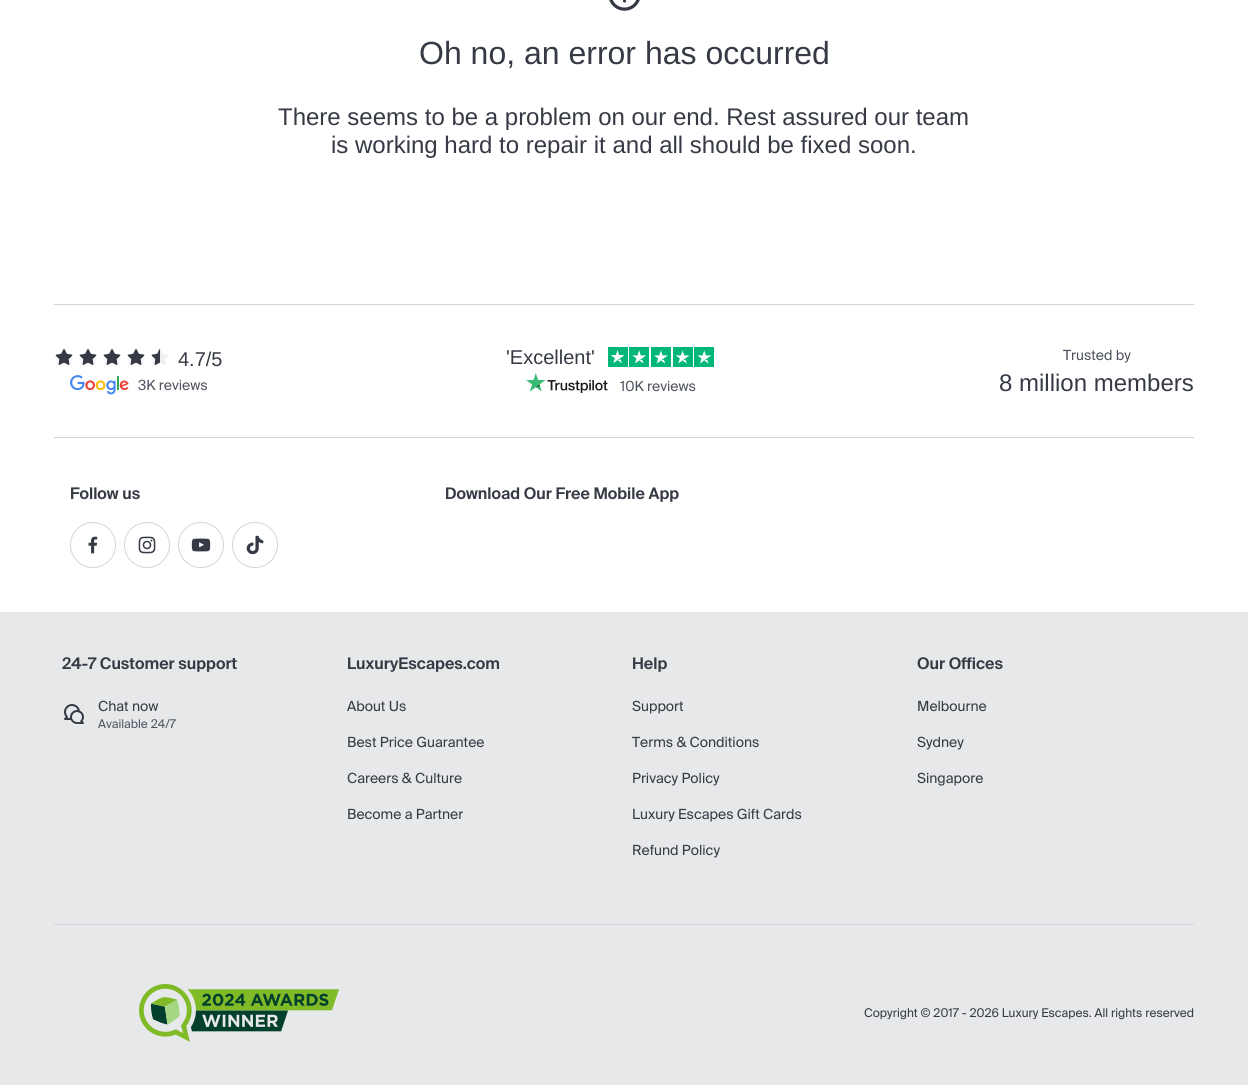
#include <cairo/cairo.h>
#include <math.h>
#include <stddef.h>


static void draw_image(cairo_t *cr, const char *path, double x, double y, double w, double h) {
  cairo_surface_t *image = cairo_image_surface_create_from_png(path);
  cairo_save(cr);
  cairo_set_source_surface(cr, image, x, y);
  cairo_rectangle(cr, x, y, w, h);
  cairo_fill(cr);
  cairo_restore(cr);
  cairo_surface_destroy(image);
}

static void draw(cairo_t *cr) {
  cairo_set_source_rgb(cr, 1, 1, 1);
  cairo_paint(cr);
  draw_image(cr, "images/1.png", 609, 0, 31, 11);
  cairo_set_source_rgb(cr, 231 / 255.0, 232 / 255.0, 234 / 255.0);
  cairo_rectangle(cr, 0, 612, 1248, 473);
  cairo_fill(cr);
  cairo_set_source_rgb(cr, 212 / 255.0, 213 / 255.0, 216 / 255.0);
  cairo_rectangle(cr, 54, 304, 1140, 1);
  cairo_fill(cr);
  draw_image(cr, "images/2.png", 55, 349, 18, 16);
  draw_image(cr, "images/2.png", 79, 349, 18, 16);
  draw_image(cr, "images/2.png", 103, 349, 18, 16);
  draw_image(cr, "images/2.png", 127, 349, 18, 16);
  draw_image(cr, "images/3.png", 151, 349, 17, 16);
  draw_image(cr, "images/4.png", 70, 375, 59, 20);
  draw_image(cr, "images/5.png", 608, 347, 106, 20);
  draw_image(cr, "images/6.png", 526, 373, 82, 20);
  cairo_rectangle(cr, 54, 437, 1140, 1);
  cairo_fill(cr);
  cairo_arc(cr, 93, 545, 22.5, 0, 2 * M_PI);
  cairo_set_line_width(cr, 1);
  cairo_stroke(cr);
  draw_image(cr, "images/7.png", 88, 536, 10, 18);
  cairo_arc(cr, 147, 545, 22.5, 0, 2 * M_PI);
  cairo_stroke(cr);
  draw_image(cr, "images/8.png", 138, 536, 18, 18);
  cairo_arc(cr, 201, 545, 22.5, 0, 2 * M_PI);
  cairo_stroke(cr);
  draw_image(cr, "images/9.png", 191, 538, 20, 14);
  cairo_arc(cr, 255, 545, 22.5, 0, 2 * M_PI);
  cairo_stroke(cr);
  draw_image(cr, "images/10.png", 246, 535, 18, 20);
  draw_image(cr, "images/11.png", 64, 704, 20, 20);
  cairo_rectangle(cr, 54, 924, 1140, 1);
  cairo_fill(cr);
  draw_image(cr, "images/12.png", 139, 984, 200, 58);
  cairo_select_font_face(cr, "Liberation Sans", CAIRO_FONT_SLANT_NORMAL, CAIRO_FONT_WEIGHT_NORMAL);
  cairo_set_font_size(cr, 32);
  cairo_set_source_rgb(cr, 54 / 255.0, 58 / 255.0, 69 / 255.0);
  cairo_move_to(cr, 419, 64);
  cairo_show_text(cr, "Oh no, an error has occurred");
  cairo_set_font_size(cr, 24);
  cairo_move_to(cr, 278, 125);
  cairo_show_text(cr, "There seems to be a problem on our end. Rest assured our team");
  cairo_move_to(cr, 331, 153);
  cairo_show_text(cr, "is working hard to repair it and all should be fixed soon.");
  cairo_set_font_size(cr, 20);
  cairo_move_to(cr, 178, 366);
  cairo_show_text(cr, "4.7/5");
  cairo_select_font_face(cr, "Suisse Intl", CAIRO_FONT_SLANT_NORMAL, CAIRO_FONT_WEIGHT_NORMAL);
  cairo_set_font_size(cr, 14);
  cairo_set_source_rgb(cr, 80 / 255.0, 84 / 255.0, 96 / 255.0);
  cairo_move_to(cr, 138, 390);
  cairo_show_text(cr, "3K reviews");
  cairo_select_font_face(cr, "Liberation Sans", CAIRO_FONT_SLANT_NORMAL, CAIRO_FONT_WEIGHT_NORMAL);
  cairo_set_font_size(cr, 20);
  cairo_set_source_rgb(cr, 54 / 255.0, 58 / 255.0, 69 / 255.0);
  cairo_move_to(cr, 506, 364);
  cairo_show_text(cr, "'Excellent'");
  cairo_select_font_face(cr, "Suisse Intl", CAIRO_FONT_SLANT_NORMAL, CAIRO_FONT_WEIGHT_NORMAL);
  cairo_set_font_size(cr, 14);
  cairo_set_source_rgb(cr, 80 / 255.0, 84 / 255.0, 96 / 255.0);
  cairo_move_to(cr, 620, 391);
  cairo_show_text(cr, "10K reviews");
  cairo_move_to(cr, 1063, 360);
  cairo_show_text(cr, "Trusted by");
  cairo_select_font_face(cr, "Liberation Sans", CAIRO_FONT_SLANT_NORMAL, CAIRO_FONT_WEIGHT_NORMAL);
  cairo_set_font_size(cr, 24);
  cairo_set_source_rgb(cr, 54 / 255.0, 58 / 255.0, 69 / 255.0);
  cairo_move_to(cr, 999, 391);
  cairo_show_text(cr, "8 million members");
  cairo_select_font_face(cr, "Suisse Intl SemiBold", CAIRO_FONT_SLANT_NORMAL, CAIRO_FONT_WEIGHT_NORMAL);
  cairo_set_font_size(cr, 16);
  cairo_move_to(cr, 70, 499);
  cairo_show_text(cr, "Follow us");
  cairo_move_to(cr, 445, 499);
  cairo_show_text(cr, "Download Our Free Mobile App");
  cairo_move_to(cr, 62, 669);
  cairo_show_text(cr, "24-7 Customer support");
  cairo_select_font_face(cr, "Suisse Intl", CAIRO_FONT_SLANT_NORMAL, CAIRO_FONT_WEIGHT_NORMAL);
  cairo_set_font_size(cr, 14);
  cairo_move_to(cr, 98, 711);
  cairo_show_text(cr, "Chat now");
  cairo_set_font_size(cr, 12);
  cairo_set_source_rgb(cr, 80 / 255.0, 84 / 255.0, 96 / 255.0);
  cairo_move_to(cr, 98, 728);
  cairo_show_text(cr, "Available 24/7");
  cairo_select_font_face(cr, "Suisse Intl SemiBold", CAIRO_FONT_SLANT_NORMAL, CAIRO_FONT_WEIGHT_NORMAL);
  cairo_set_font_size(cr, 16);
  cairo_set_source_rgb(cr, 54 / 255.0, 58 / 255.0, 69 / 255.0);
  cairo_move_to(cr, 347, 669);
  cairo_show_text(cr, "LuxuryEscapes.com");
  cairo_select_font_face(cr, "Suisse Intl", CAIRO_FONT_SLANT_NORMAL, CAIRO_FONT_WEIGHT_NORMAL);
  cairo_set_font_size(cr, 14);
  cairo_move_to(cr, 347, 711);
  cairo_show_text(cr, "About Us");
  cairo_move_to(cr, 347, 747);
  cairo_show_text(cr, "Best Price Guarantee");
  cairo_move_to(cr, 347, 783);
  cairo_show_text(cr, "Careers & Culture");
  cairo_move_to(cr, 347, 819);
  cairo_show_text(cr, "Become a Partner");
  cairo_select_font_face(cr, "Suisse Intl SemiBold", CAIRO_FONT_SLANT_NORMAL, CAIRO_FONT_WEIGHT_NORMAL);
  cairo_set_font_size(cr, 16);
  cairo_move_to(cr, 632, 669);
  cairo_show_text(cr, "Help");
  cairo_select_font_face(cr, "Suisse Intl", CAIRO_FONT_SLANT_NORMAL, CAIRO_FONT_WEIGHT_NORMAL);
  cairo_set_font_size(cr, 14);
  cairo_move_to(cr, 632, 711);
  cairo_show_text(cr, "Support");
  cairo_move_to(cr, 632, 747);
  cairo_show_text(cr, "Terms & Conditions");
  cairo_move_to(cr, 632, 783);
  cairo_show_text(cr, "Privacy Policy");
  cairo_move_to(cr, 632, 819);
  cairo_show_text(cr, "Luxury Escapes Gift Cards");
  cairo_move_to(cr, 632, 855);
  cairo_show_text(cr, "Refund Policy");
  cairo_select_font_face(cr, "Suisse Intl SemiBold", CAIRO_FONT_SLANT_NORMAL, CAIRO_FONT_WEIGHT_NORMAL);
  cairo_set_font_size(cr, 16);
  cairo_move_to(cr, 917, 669);
  cairo_show_text(cr, "Our Offices");
  cairo_select_font_face(cr, "Suisse Intl", CAIRO_FONT_SLANT_NORMAL, CAIRO_FONT_WEIGHT_NORMAL);
  cairo_set_font_size(cr, 14);
  cairo_move_to(cr, 917, 711);
  cairo_show_text(cr, "Melbourne");
  cairo_move_to(cr, 917, 747);
  cairo_show_text(cr, "Sydney");
  cairo_move_to(cr, 917, 783);
  cairo_show_text(cr, "Singapore");
  cairo_set_font_size(cr, 12);
  cairo_move_to(cr, 864, 1017);
  cairo_show_text(cr, "Copyright © 2017 - 2026 Luxury Escapes. All rights reserved");
}

int main(void) {
  cairo_surface_t *surface = cairo_image_surface_create(CAIRO_FORMAT_RGB24, 1248, 1085);
  cairo_t *cr = cairo_create(surface);
  cairo_font_options_t *options = cairo_font_options_create();
  cairo_font_options_set_hint_metrics(options, CAIRO_HINT_METRICS_OFF);
  cairo_font_options_set_hint_style(options, CAIRO_HINT_STYLE_NONE);
  cairo_set_font_options(cr, options);
  cairo_set_miter_limit(cr, 4);
  draw(cr);
  cairo_surface_write_to_png(surface, "out.png");
  cairo_font_options_destroy(options);
  cairo_destroy(cr);
  cairo_surface_destroy(surface);
  return 0;
}
